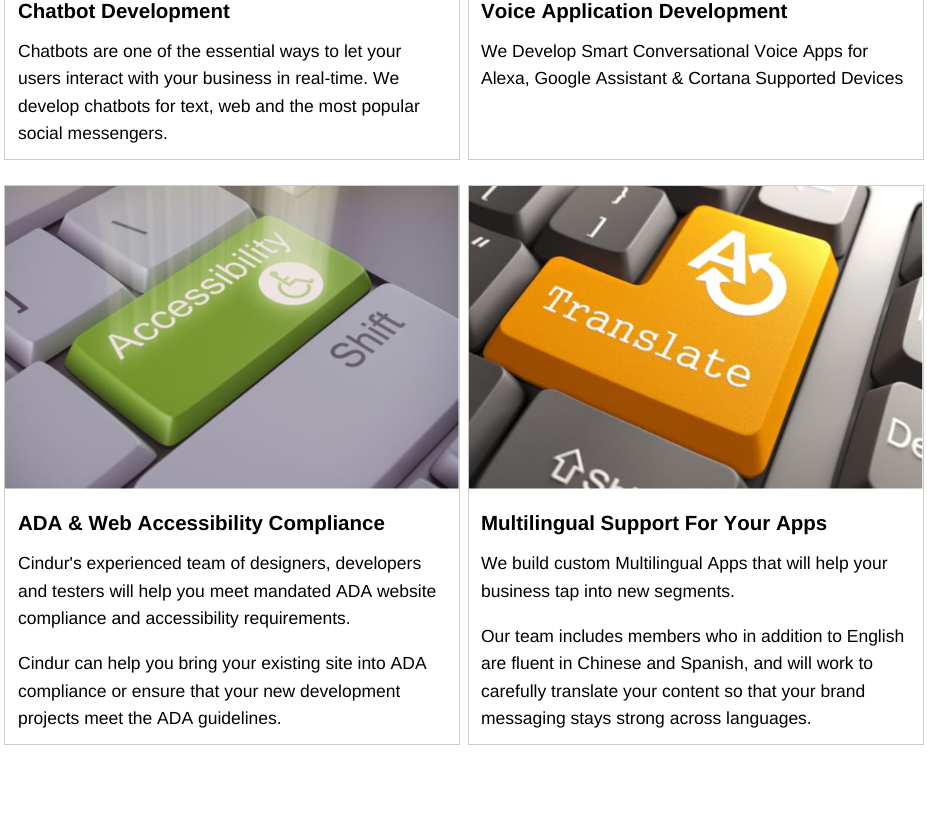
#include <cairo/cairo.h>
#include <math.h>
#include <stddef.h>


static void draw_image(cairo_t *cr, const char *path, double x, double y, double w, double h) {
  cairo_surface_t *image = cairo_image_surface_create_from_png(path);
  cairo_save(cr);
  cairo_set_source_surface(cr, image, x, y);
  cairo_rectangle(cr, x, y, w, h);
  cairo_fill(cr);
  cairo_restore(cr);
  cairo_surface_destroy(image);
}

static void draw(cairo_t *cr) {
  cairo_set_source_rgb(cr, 1, 1, 1);
  cairo_paint(cr);
  cairo_rectangle(cr, 4.5, -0.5, 455, 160);
  cairo_set_source_rgb(cr, 204 / 255.0, 204 / 255.0, 204 / 255.0);
  cairo_set_line_width(cr, 1);
  cairo_stroke(cr);
  cairo_rectangle(cr, 468.5, -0.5, 455, 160);
  cairo_stroke(cr);
  cairo_rectangle(cr, 4.5, 185.5, 455, 559);
  cairo_stroke(cr);
  draw_image(cr, "images/1.png", 5, 186, 454, 303);
  cairo_rectangle(cr, 468.5, 185.5, 455, 559);
  cairo_stroke(cr);
  draw_image(cr, "images/2.png", 468, 186, 455, 303);
  cairo_select_font_face(cr, "Liberation Sans", CAIRO_FONT_SLANT_NORMAL, CAIRO_FONT_WEIGHT_BOLD);
  cairo_set_font_size(cr, 20.5);
  cairo_set_source_rgb(cr, 0, 0, 0);
  cairo_move_to(cr, 18, 18);
  cairo_show_text(cr, "Chatbot Development");
  cairo_select_font_face(cr, "Liberation Sans", CAIRO_FONT_SLANT_NORMAL, CAIRO_FONT_WEIGHT_NORMAL);
  cairo_set_font_size(cr, 17.5);
  cairo_move_to(cr, 18, 57);
  cairo_show_text(cr, "Chatbots are one of the essential ways to let your");
  cairo_move_to(cr, 18, 84);
  cairo_show_text(cr, "users interact with your business in real-time. We");
  cairo_move_to(cr, 18, 112);
  cairo_show_text(cr, "develop chatbots for text, web and the most popular");
  cairo_move_to(cr, 18, 139);
  cairo_show_text(cr, "social messengers.");
  cairo_select_font_face(cr, "Liberation Sans", CAIRO_FONT_SLANT_NORMAL, CAIRO_FONT_WEIGHT_BOLD);
  cairo_set_font_size(cr, 20.5);
  cairo_move_to(cr, 481, 18);
  cairo_show_text(cr, "Voice Application Development");
  cairo_select_font_face(cr, "Liberation Sans", CAIRO_FONT_SLANT_NORMAL, CAIRO_FONT_WEIGHT_NORMAL);
  cairo_set_font_size(cr, 17.5);
  cairo_move_to(cr, 481, 57);
  cairo_show_text(cr, "We Develop Smart Conversational Voice Apps for");
  cairo_move_to(cr, 481, 84);
  cairo_show_text(cr, "Alexa, Google Assistant & Cortana Supported Devices");
  cairo_select_font_face(cr, "Liberation Sans", CAIRO_FONT_SLANT_NORMAL, CAIRO_FONT_WEIGHT_BOLD);
  cairo_set_font_size(cr, 20.5);
  cairo_move_to(cr, 18, 530);
  cairo_show_text(cr, "ADA & Web Accessibility Compliance");
  cairo_select_font_face(cr, "Liberation Sans", CAIRO_FONT_SLANT_NORMAL, CAIRO_FONT_WEIGHT_NORMAL);
  cairo_set_font_size(cr, 17.5);
  cairo_move_to(cr, 18, 569);
  cairo_show_text(cr, "Cindur's experienced team of designers, developers");
  cairo_move_to(cr, 18, 597);
  cairo_show_text(cr, "and testers will help you meet mandated ADA website");
  cairo_move_to(cr, 18, 624);
  cairo_show_text(cr, "compliance and accessibility requirements.");
  cairo_move_to(cr, 18, 669);
  cairo_show_text(cr, "Cindur can help you bring your existing site into ADA");
  cairo_move_to(cr, 18, 697);
  cairo_show_text(cr, "compliance or ensure that your new development");
  cairo_move_to(cr, 18, 724);
  cairo_show_text(cr, "projects meet the ADA guidelines.");
  cairo_select_font_face(cr, "Liberation Sans", CAIRO_FONT_SLANT_NORMAL, CAIRO_FONT_WEIGHT_BOLD);
  cairo_set_font_size(cr, 20.5);
  cairo_move_to(cr, 481, 530);
  cairo_show_text(cr, "Multilingual Support For Your Apps");
  cairo_select_font_face(cr, "Liberation Sans", CAIRO_FONT_SLANT_NORMAL, CAIRO_FONT_WEIGHT_NORMAL);
  cairo_set_font_size(cr, 17.5);
  cairo_move_to(cr, 481, 569);
  cairo_show_text(cr, "We build custom Multilingual Apps that will help your");
  cairo_move_to(cr, 481, 597);
  cairo_show_text(cr, "business tap into new segments.");
  cairo_move_to(cr, 481, 642);
  cairo_show_text(cr, "Our team includes members who in addition to English");
  cairo_move_to(cr, 481, 669);
  cairo_show_text(cr, "are fluent in Chinese and Spanish, and will work to");
  cairo_move_to(cr, 481, 697);
  cairo_show_text(cr, "carefully translate your content so that your brand");
  cairo_move_to(cr, 481, 724);
  cairo_show_text(cr, "messaging stays strong across languages.");
}

int main(void) {
  cairo_surface_t *surface = cairo_image_surface_create(CAIRO_FORMAT_RGB24, 927, 830);
  cairo_t *cr = cairo_create(surface);
  cairo_font_options_t *options = cairo_font_options_create();
  cairo_font_options_set_hint_metrics(options, CAIRO_HINT_METRICS_OFF);
  cairo_font_options_set_hint_style(options, CAIRO_HINT_STYLE_NONE);
  cairo_set_font_options(cr, options);
  cairo_set_miter_limit(cr, 4);
  draw(cr);
  cairo_surface_write_to_png(surface, "out.png");
  cairo_font_options_destroy(options);
  cairo_destroy(cr);
  cairo_surface_destroy(surface);
  return 0;
}
